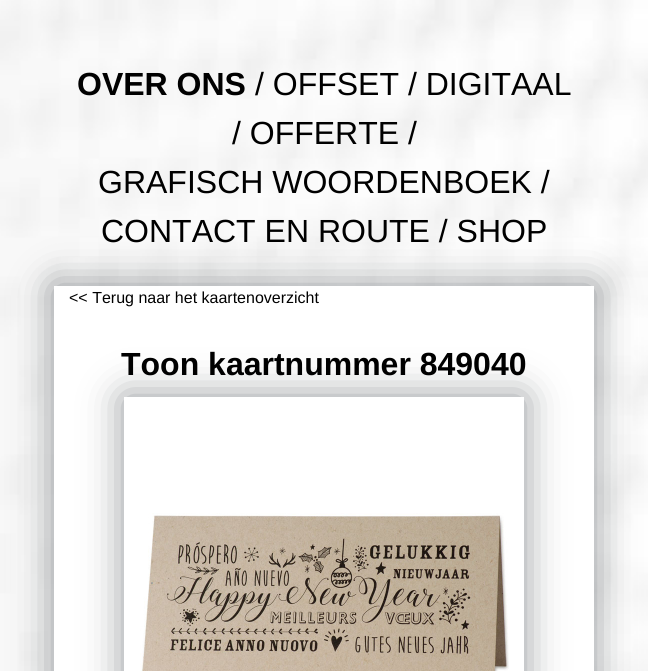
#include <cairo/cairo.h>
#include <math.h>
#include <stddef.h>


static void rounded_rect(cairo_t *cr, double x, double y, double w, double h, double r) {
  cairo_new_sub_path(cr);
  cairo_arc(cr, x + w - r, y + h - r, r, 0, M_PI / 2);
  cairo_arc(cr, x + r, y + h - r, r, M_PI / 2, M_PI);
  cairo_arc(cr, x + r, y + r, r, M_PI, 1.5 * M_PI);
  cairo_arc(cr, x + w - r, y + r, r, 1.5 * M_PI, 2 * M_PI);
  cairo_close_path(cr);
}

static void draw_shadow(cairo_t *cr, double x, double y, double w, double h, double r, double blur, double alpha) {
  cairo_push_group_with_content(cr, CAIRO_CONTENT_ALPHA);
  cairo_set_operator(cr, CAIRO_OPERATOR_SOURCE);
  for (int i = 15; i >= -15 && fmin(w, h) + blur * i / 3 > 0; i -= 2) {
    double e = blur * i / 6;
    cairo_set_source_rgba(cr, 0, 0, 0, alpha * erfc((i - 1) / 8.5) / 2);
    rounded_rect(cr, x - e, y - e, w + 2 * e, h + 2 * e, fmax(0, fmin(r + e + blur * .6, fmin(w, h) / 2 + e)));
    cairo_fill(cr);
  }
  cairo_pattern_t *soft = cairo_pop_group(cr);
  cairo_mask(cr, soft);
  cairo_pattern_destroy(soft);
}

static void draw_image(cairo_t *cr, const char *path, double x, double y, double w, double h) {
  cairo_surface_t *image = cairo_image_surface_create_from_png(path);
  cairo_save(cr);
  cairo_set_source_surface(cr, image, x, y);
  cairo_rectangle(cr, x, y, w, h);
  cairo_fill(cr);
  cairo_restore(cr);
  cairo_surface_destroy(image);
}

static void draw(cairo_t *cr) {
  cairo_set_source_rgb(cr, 1, 1, 1);
  cairo_paint(cr);
  draw_image(cr, "images/1.png", 0, 0, 648, 671);
  cairo_set_source_rgb(cr, 37 / 255.0, 45 / 255.0, 51 / 255.0);
  draw_shadow(cr, 54, 286, 540, 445, 0, 20, 0.5);
  cairo_set_source_rgb(cr, 1, 1, 1);
  cairo_rectangle(cr, 54, 286, 540, 385);
  cairo_fill(cr);
  cairo_save(cr);
  cairo_set_fill_rule(cr, CAIRO_FILL_RULE_EVEN_ODD);
  cairo_new_path(cr);
  cairo_move_to(cr, 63, 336);
  cairo_line_to(cr, 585, 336);
  cairo_line_to(cr, 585, 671);
  cairo_line_to(cr, 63, 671);
  cairo_close_path(cr);
  cairo_move_to(cr, 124, 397);
  cairo_line_to(cr, 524, 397);
  cairo_line_to(cr, 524, 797);
  cairo_line_to(cr, 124, 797);
  cairo_close_path(cr);
  cairo_clip(cr);
  cairo_set_source_rgb(cr, 37 / 255.0, 45 / 255.0, 51 / 255.0);
  draw_shadow(cr, 124, 397, 400, 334, 0, 20, 0.5);
  cairo_restore(cr);
  draw_image(cr, "images/2.png", 140, 513, 369, 158);
  cairo_select_font_face(cr, "Liberation Sans", CAIRO_FONT_SLANT_NORMAL, CAIRO_FONT_WEIGHT_BOLD);
  cairo_set_font_size(cr, 32);
  cairo_set_source_rgb(cr, 0, 0, 0);
  cairo_move_to(cr, 77, 95);
  cairo_show_text(cr, "OVER ONS");
  cairo_select_font_face(cr, "Liberation Sans", CAIRO_FONT_SLANT_NORMAL, CAIRO_FONT_WEIGHT_NORMAL);
  cairo_move_to(cr, 255, 95);
  cairo_show_text(cr, "/ OFFSET / DIGITAAL");
  cairo_move_to(cr, 232, 144);
  cairo_show_text(cr, "/ OFFERTE /");
  cairo_move_to(cr, 98, 193);
  cairo_show_text(cr, "GRAFISCH WOORDENBOEK /");
  cairo_move_to(cr, 101, 242);
  cairo_show_text(cr, "CONTACT EN ROUTE / SHOP");
  cairo_set_font_size(cr, 16);
  cairo_move_to(cr, 69, 303);
  cairo_show_text(cr, "<< Terug naar het kaartenoverzicht");
  cairo_select_font_face(cr, "Liberation Sans", CAIRO_FONT_SLANT_NORMAL, CAIRO_FONT_WEIGHT_BOLD);
  cairo_set_font_size(cr, 32);
  cairo_move_to(cr, 121, 375);
  cairo_show_text(cr, "Toon kaartnummer 849040");
}

int main(void) {
  cairo_surface_t *surface = cairo_image_surface_create(CAIRO_FORMAT_RGB24, 648, 671);
  cairo_t *cr = cairo_create(surface);
  cairo_font_options_t *options = cairo_font_options_create();
  cairo_font_options_set_hint_metrics(options, CAIRO_HINT_METRICS_OFF);
  cairo_font_options_set_hint_style(options, CAIRO_HINT_STYLE_NONE);
  cairo_set_font_options(cr, options);
  cairo_set_miter_limit(cr, 4);
  draw(cr);
  cairo_surface_write_to_png(surface, "out.png");
  cairo_font_options_destroy(options);
  cairo_destroy(cr);
  cairo_surface_destroy(surface);
  return 0;
}
